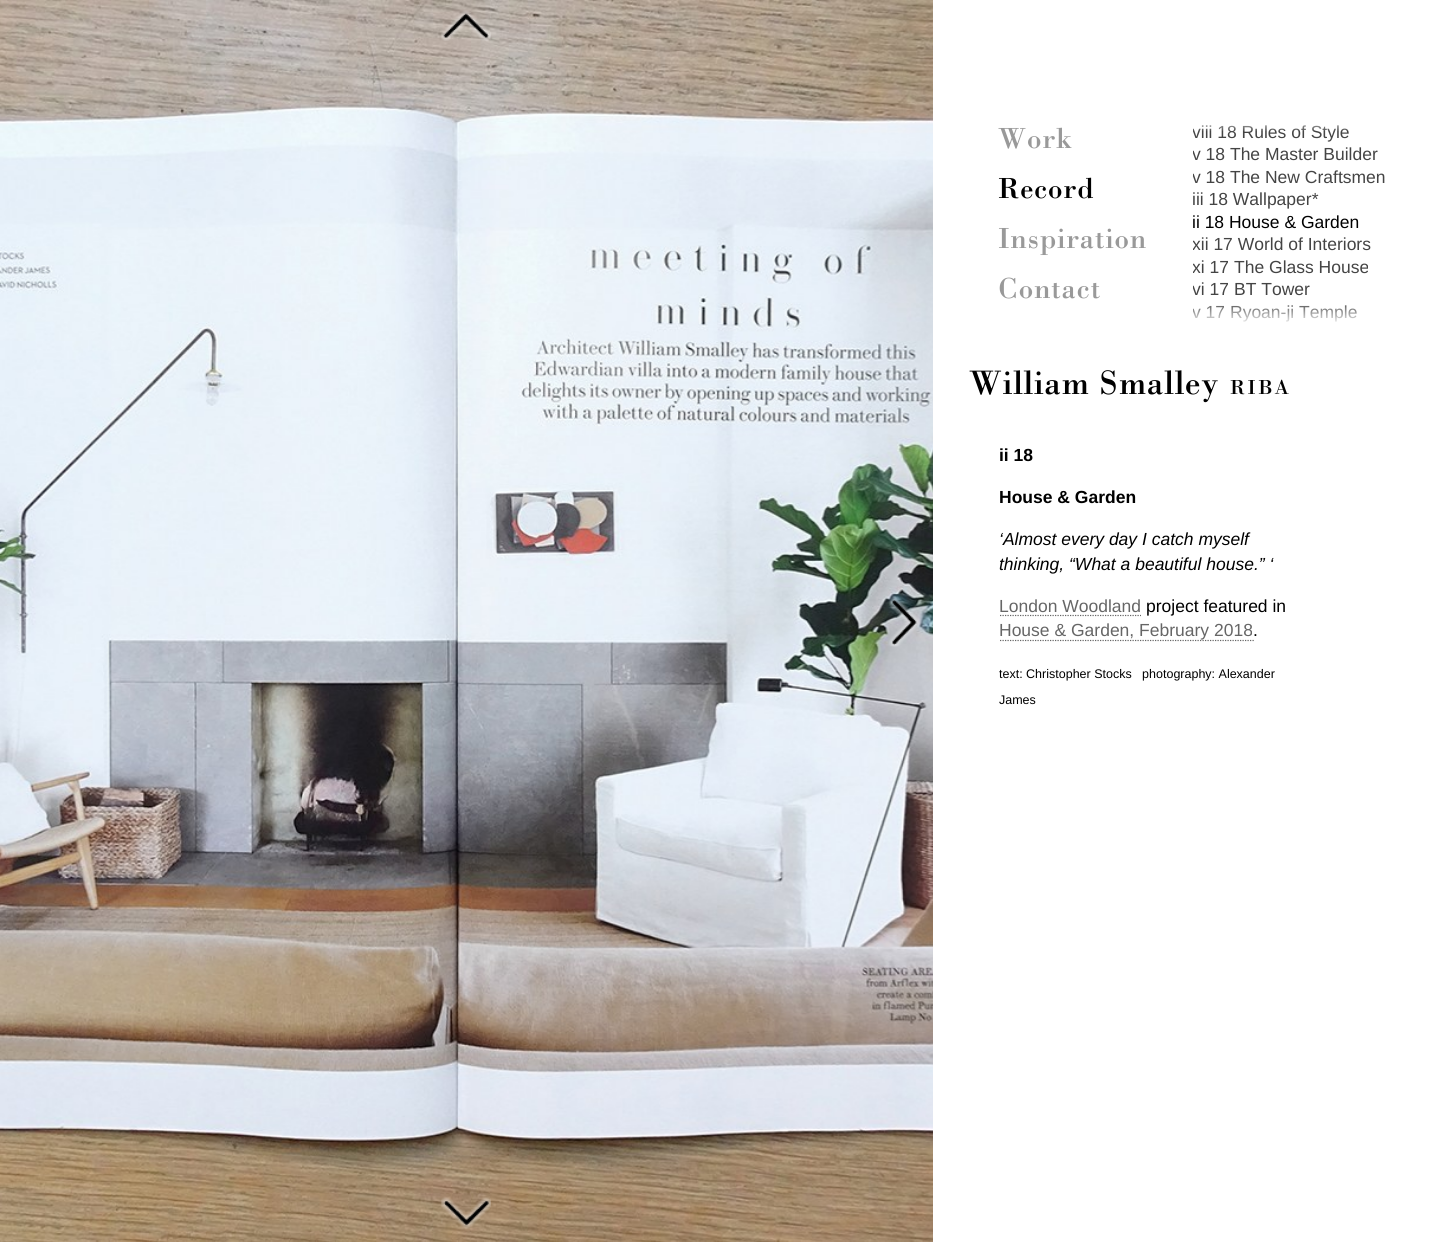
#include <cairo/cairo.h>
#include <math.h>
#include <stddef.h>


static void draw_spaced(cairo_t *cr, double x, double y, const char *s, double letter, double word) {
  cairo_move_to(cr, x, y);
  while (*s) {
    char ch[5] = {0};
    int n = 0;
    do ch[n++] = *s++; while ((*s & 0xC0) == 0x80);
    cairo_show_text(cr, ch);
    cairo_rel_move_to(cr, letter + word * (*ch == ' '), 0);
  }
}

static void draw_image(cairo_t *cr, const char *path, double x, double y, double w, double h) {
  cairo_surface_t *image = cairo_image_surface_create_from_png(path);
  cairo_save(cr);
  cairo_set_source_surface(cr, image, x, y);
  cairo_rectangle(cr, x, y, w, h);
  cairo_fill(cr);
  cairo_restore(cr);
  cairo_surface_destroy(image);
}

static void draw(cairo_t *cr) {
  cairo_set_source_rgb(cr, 1, 1, 1);
  cairo_paint(cr);
  draw_image(cr, "images/1.png", 0, 0, 933, 1242);
  draw_image(cr, "images/2.png", 888, 596, 41, 51);
  draw_image(cr, "images/3.png", 441, 10, 50, 31);
  draw_image(cr, "images/4.png", 441, 1197, 50, 32);
  cairo_new_path(cr);
  cairo_move_to(cr, 1000, 615.5);
  cairo_line_to(cr, 1141, 615.5);
  cairo_set_source_rgb(cr, 102 / 255.0, 102 / 255.0, 102 / 255.0);
  cairo_set_line_width(cr, 1.2);
  cairo_set_dash(cr, (double[]){1.25, 1.25}, 2, 0);
  cairo_stroke(cr);
  cairo_new_path(cr);
  cairo_move_to(cr, 1000, 640.5);
  cairo_line_to(cr, 1254, 640.5);
  cairo_stroke(cr);
  cairo_select_font_face(cr, "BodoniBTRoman", CAIRO_FONT_SLANT_NORMAL, CAIRO_FONT_WEIGHT_NORMAL);
  cairo_set_font_size(cr, 30);
  cairo_set_source_rgb(cr, 0, 0, 0);
  draw_spaced(cr, 998, 198, "Record", 0.6, 0);
  cairo_save(cr);
  cairo_rectangle(cr, 1193, 106, 206, 219);
  cairo_clip(cr);
  cairo_select_font_face(cr, "Liberation Sans", CAIRO_FONT_SLANT_NORMAL, CAIRO_FONT_WEIGHT_NORMAL);
  cairo_set_font_size(cr, 17.5);
  cairo_set_source_rgb(cr, 68 / 255.0, 68 / 255.0, 68 / 255.0);
  cairo_move_to(cr, 1192, 138);
  cairo_show_text(cr, "viii 18 Rules of Style");
  cairo_restore(cr);
  draw_image(cr, "images/5.png", 1193, 106, 155, 25);
  cairo_save(cr);
  cairo_rectangle(cr, 1193, 106, 206, 219);
  cairo_clip(cr);
  cairo_select_font_face(cr, "Liberation Sans", CAIRO_FONT_SLANT_NORMAL, CAIRO_FONT_WEIGHT_NORMAL);
  cairo_set_font_size(cr, 17.5);
  cairo_set_source_rgb(cr, 68 / 255.0, 68 / 255.0, 68 / 255.0);
  cairo_move_to(cr, 1192, 160);
  cairo_show_text(cr, "v 18 The Master Builder");
  cairo_move_to(cr, 1192, 183);
  cairo_show_text(cr, "v 18 The New Craftsmen");
  cairo_restore(cr);
  cairo_select_font_face(cr, "Liberation Sans", CAIRO_FONT_SLANT_NORMAL, CAIRO_FONT_WEIGHT_NORMAL);
  cairo_set_font_size(cr, 17.5);
  cairo_set_source_rgb(cr, 68 / 255.0, 68 / 255.0, 68 / 255.0);
  cairo_move_to(cr, 1192, 205);
  cairo_show_text(cr, "iii 18 Wallpaper*");
  cairo_set_source_rgb(cr, 0, 0, 0);
  cairo_move_to(cr, 1192, 228);
  cairo_show_text(cr, "ii 18 House & Garden");
  cairo_save(cr);
  cairo_rectangle(cr, 1193, 106, 206, 219);
  cairo_clip(cr);
  cairo_set_source_rgb(cr, 68 / 255.0, 68 / 255.0, 68 / 255.0);
  cairo_move_to(cr, 1192, 250);
  cairo_show_text(cr, "xii 17 World of Interiors");
  cairo_move_to(cr, 1192, 273);
  cairo_show_text(cr, "xi 17");
  cairo_restore(cr);
  cairo_set_source_rgb(cr, 68 / 255.0, 68 / 255.0, 68 / 255.0);
  cairo_move_to(cr, 1234, 273);
  cairo_show_text(cr, "The Glass House");
  cairo_save(cr);
  cairo_rectangle(cr, 1193, 106, 206, 219);
  cairo_clip(cr);
  cairo_move_to(cr, 1192, 295);
  cairo_show_text(cr, "vi 17");
  cairo_restore(cr);
  cairo_move_to(cr, 1234, 295);
  cairo_show_text(cr, "BT Tower");
  cairo_save(cr);
  cairo_rectangle(cr, 1193, 106, 206, 219);
  cairo_clip(cr);
  cairo_move_to(cr, 1192, 318);
  cairo_show_text(cr, "v 17");
  cairo_restore(cr);
  cairo_move_to(cr, 1230, 318);
  cairo_show_text(cr, "Ryoan-ji Temple");
  draw_image(cr, "images/6.png", 1193, 305, 164, 17);
  cairo_select_font_face(cr, "BodoniBTRoman", CAIRO_FONT_SLANT_NORMAL, CAIRO_FONT_WEIGHT_NORMAL);
  cairo_set_font_size(cr, 30);
  cairo_set_source_rgb(cr, 153 / 255.0, 153 / 255.0, 153 / 255.0);
  draw_spaced(cr, 998, 148, "Work", 0.6, 0);
  draw_spaced(cr, 998, 248, "Inspiration", 0.6, 0);
  draw_spaced(cr, 998, 298, "Contact", 0.6, 0);
  cairo_set_font_size(cr, 35);
  cairo_set_source_rgb(cr, 0, 0, 0);
  draw_spaced(cr, 969, 394, "William Smalley", 0.6, 0);
  cairo_set_font_size(cr, 21);
  draw_spaced(cr, 1230, 394, "RIBA", 2.5, 0);
  cairo_select_font_face(cr, "Liberation Sans", CAIRO_FONT_SLANT_NORMAL, CAIRO_FONT_WEIGHT_BOLD);
  cairo_set_font_size(cr, 17.5);
  cairo_move_to(cr, 999, 461);
  cairo_show_text(cr, "ii 18");
  cairo_move_to(cr, 999, 503);
  cairo_show_text(cr, "House & Garden");
  cairo_select_font_face(cr, "Liberation Sans", CAIRO_FONT_SLANT_ITALIC, CAIRO_FONT_WEIGHT_NORMAL);
  cairo_move_to(cr, 999, 545);
  cairo_show_text(cr, "‘Almost every day I catch myself");
  cairo_move_to(cr, 999, 570);
  cairo_show_text(cr, "thinking, “What a beautiful house.” ‘");
  cairo_select_font_face(cr, "Liberation Sans", CAIRO_FONT_SLANT_NORMAL, CAIRO_FONT_WEIGHT_NORMAL);
  cairo_set_source_rgb(cr, 102 / 255.0, 102 / 255.0, 102 / 255.0);
  cairo_move_to(cr, 999, 612);
  cairo_show_text(cr, "London Woodland");
  cairo_set_source_rgb(cr, 0, 0, 0);
  cairo_move_to(cr, 1146, 612);
  cairo_show_text(cr, "project featured in");
  cairo_set_source_rgb(cr, 102 / 255.0, 102 / 255.0, 102 / 255.0);
  cairo_move_to(cr, 999, 636);
  cairo_show_text(cr, "House & Garden, February 2018");
  cairo_set_source_rgb(cr, 0, 0, 0);
  cairo_move_to(cr, 1253, 636);
  cairo_show_text(cr, ".");
  cairo_set_font_size(cr, 12.5);
  cairo_move_to(cr, 999, 678);
  cairo_show_text(cr, "text: Christopher Stocks   photography: Alexander");
  cairo_move_to(cr, 999, 704);
  cairo_show_text(cr, "James");
}

int main(void) {
  cairo_surface_t *surface = cairo_image_surface_create(CAIRO_FORMAT_RGB24, 1433, 1242);
  cairo_t *cr = cairo_create(surface);
  cairo_font_options_t *options = cairo_font_options_create();
  cairo_font_options_set_hint_metrics(options, CAIRO_HINT_METRICS_OFF);
  cairo_font_options_set_hint_style(options, CAIRO_HINT_STYLE_NONE);
  cairo_set_font_options(cr, options);
  cairo_set_miter_limit(cr, 4);
  draw(cr);
  cairo_surface_write_to_png(surface, "out.png");
  cairo_font_options_destroy(options);
  cairo_destroy(cr);
  cairo_surface_destroy(surface);
  return 0;
}
